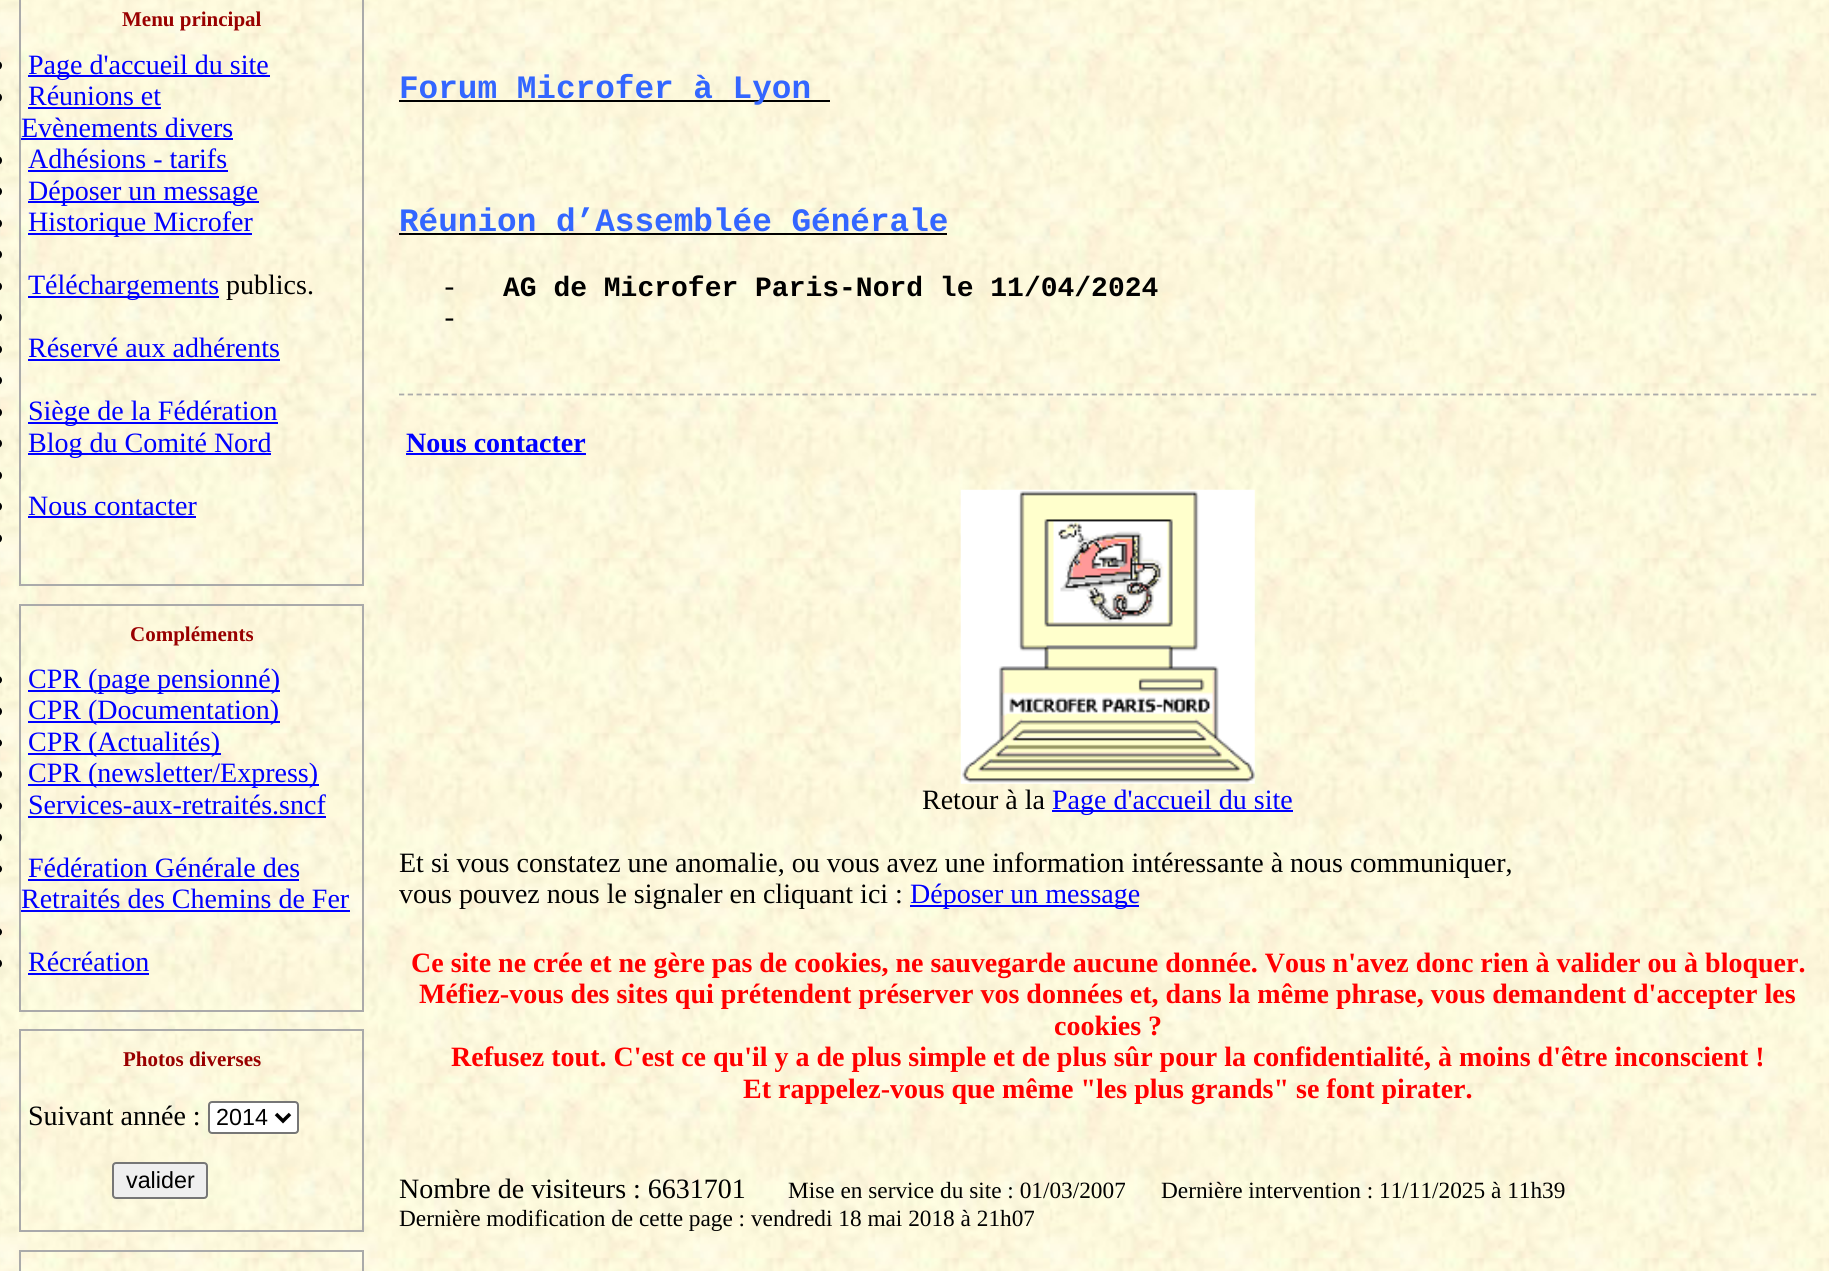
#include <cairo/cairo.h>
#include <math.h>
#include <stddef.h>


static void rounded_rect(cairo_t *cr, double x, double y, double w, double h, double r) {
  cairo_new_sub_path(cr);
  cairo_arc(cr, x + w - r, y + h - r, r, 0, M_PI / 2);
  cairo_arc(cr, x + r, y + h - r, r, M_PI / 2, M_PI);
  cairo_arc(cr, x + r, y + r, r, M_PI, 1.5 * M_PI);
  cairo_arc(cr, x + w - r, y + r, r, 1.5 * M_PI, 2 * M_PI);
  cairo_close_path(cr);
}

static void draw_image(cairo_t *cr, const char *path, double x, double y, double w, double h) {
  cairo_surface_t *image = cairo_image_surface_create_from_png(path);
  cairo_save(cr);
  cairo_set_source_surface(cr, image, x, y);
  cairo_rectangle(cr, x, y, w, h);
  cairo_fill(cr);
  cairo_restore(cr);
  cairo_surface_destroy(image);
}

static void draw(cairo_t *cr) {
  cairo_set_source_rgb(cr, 1, 1, 1);
  cairo_paint(cr);
  draw_image(cr, "images/1.png", 0, 0, 1829, 1271);
  cairo_rectangle(cr, 20, -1, 343, 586);
  cairo_set_source_rgb(cr, 170 / 255.0, 170 / 255.0, 170 / 255.0);
  cairo_stroke(cr);
  cairo_set_source_rgb(cr, 0, 0, 0);
  rounded_rect(cr, -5, 61, 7, 9, 4.5);
  cairo_fill(cr);
  cairo_set_source_rgb(cr, 0, 0, 1);
  cairo_rectangle(cr, 28, 75, 242, 2);
  cairo_fill(cr);
  cairo_set_source_rgb(cr, 0, 0, 0);
  rounded_rect(cr, -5, 93, 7, 9, 4.5);
  cairo_fill(cr);
  cairo_set_source_rgb(cr, 0, 0, 1);
  cairo_rectangle(cr, 28, 107, 133, 2);
  cairo_fill(cr);
  cairo_rectangle(cr, 21, 138, 212, 2);
  cairo_fill(cr);
  cairo_set_source_rgb(cr, 0, 0, 0);
  rounded_rect(cr, -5, 156, 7, 9, 4.5);
  cairo_fill(cr);
  cairo_set_source_rgb(cr, 0, 0, 1);
  cairo_rectangle(cr, 28, 170, 200, 2);
  cairo_fill(cr);
  cairo_set_source_rgb(cr, 0, 0, 0);
  rounded_rect(cr, -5, 187, 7, 9, 4.5);
  cairo_fill(cr);
  cairo_set_source_rgb(cr, 0, 0, 1);
  cairo_rectangle(cr, 28, 201, 231, 2);
  cairo_fill(cr);
  cairo_set_source_rgb(cr, 0, 0, 0);
  rounded_rect(cr, -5, 219, 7, 9, 4.5);
  cairo_fill(cr);
  cairo_set_source_rgb(cr, 0, 0, 1);
  cairo_rectangle(cr, 28, 233, 224, 2);
  cairo_fill(cr);
  cairo_set_source_rgb(cr, 0, 0, 0);
  rounded_rect(cr, -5, 250, 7, 9, 4.5);
  cairo_fill(cr);
  rounded_rect(cr, -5, 282, 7, 9, 4.5);
  cairo_fill(cr);
  cairo_set_source_rgb(cr, 0, 0, 1);
  cairo_rectangle(cr, 28, 296, 191, 2);
  cairo_fill(cr);
  cairo_set_source_rgb(cr, 0, 0, 0);
  rounded_rect(cr, -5, 313, 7, 9, 4.5);
  cairo_fill(cr);
  rounded_rect(cr, -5, 345, 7, 9, 4.5);
  cairo_fill(cr);
  cairo_set_source_rgb(cr, 0, 0, 1);
  cairo_rectangle(cr, 28, 359, 252, 2);
  cairo_fill(cr);
  cairo_set_source_rgb(cr, 0, 0, 0);
  rounded_rect(cr, -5, 376, 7, 9, 4.5);
  cairo_fill(cr);
  rounded_rect(cr, -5, 408, 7, 9, 4.5);
  cairo_fill(cr);
  cairo_set_source_rgb(cr, 0, 0, 1);
  cairo_rectangle(cr, 28, 422, 250, 2);
  cairo_fill(cr);
  cairo_set_source_rgb(cr, 0, 0, 0);
  rounded_rect(cr, -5, 439, 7, 9, 4.5);
  cairo_fill(cr);
  cairo_set_source_rgb(cr, 0, 0, 1);
  cairo_rectangle(cr, 28, 453, 243, 2);
  cairo_fill(cr);
  cairo_set_source_rgb(cr, 0, 0, 0);
  rounded_rect(cr, -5, 471, 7, 9, 4.5);
  cairo_fill(cr);
  rounded_rect(cr, -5, 502, 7, 9, 4.5);
  cairo_fill(cr);
  cairo_set_source_rgb(cr, 0, 0, 1);
  cairo_rectangle(cr, 28, 516, 168, 2);
  cairo_fill(cr);
  cairo_set_source_rgb(cr, 0, 0, 0);
  rounded_rect(cr, -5, 534, 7, 9, 4.5);
  cairo_fill(cr);
  cairo_rectangle(cr, 20, 605, 343, 406);
  cairo_set_source_rgb(cr, 170 / 255.0, 170 / 255.0, 170 / 255.0);
  cairo_stroke(cr);
  cairo_set_source_rgb(cr, 0, 0, 0);
  rounded_rect(cr, -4, 676, 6, 8, 4);
  cairo_fill(cr);
  cairo_set_source_rgb(cr, 0, 0, 1);
  cairo_rectangle(cr, 28, 690, 252, 2);
  cairo_fill(cr);
  cairo_set_source_rgb(cr, 0, 0, 0);
  rounded_rect(cr, -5, 707, 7, 9, 4.5);
  cairo_fill(cr);
  cairo_set_source_rgb(cr, 0, 0, 1);
  cairo_rectangle(cr, 28, 721, 252, 2);
  cairo_fill(cr);
  cairo_set_source_rgb(cr, 0, 0, 0);
  rounded_rect(cr, -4, 739, 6, 8, 4);
  cairo_fill(cr);
  cairo_set_source_rgb(cr, 0, 0, 1);
  cairo_rectangle(cr, 28, 753, 193, 2);
  cairo_fill(cr);
  cairo_set_source_rgb(cr, 0, 0, 0);
  rounded_rect(cr, -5, 770, 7, 9, 4.5);
  cairo_fill(cr);
  cairo_set_source_rgb(cr, 0, 0, 1);
  cairo_rectangle(cr, 28, 784, 291, 2);
  cairo_fill(cr);
  cairo_set_source_rgb(cr, 0, 0, 0);
  rounded_rect(cr, -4, 802, 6, 8, 4);
  cairo_fill(cr);
  cairo_set_source_rgb(cr, 0, 0, 1);
  cairo_rectangle(cr, 28, 816, 298, 2);
  cairo_fill(cr);
  cairo_set_source_rgb(cr, 0, 0, 0);
  rounded_rect(cr, -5, 833, 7, 9, 4.5);
  cairo_fill(cr);
  rounded_rect(cr, -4, 865, 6, 8, 4);
  cairo_fill(cr);
  cairo_set_source_rgb(cr, 0, 0, 1);
  cairo_rectangle(cr, 28, 879, 271, 2);
  cairo_fill(cr);
  cairo_rectangle(cr, 21, 910, 329, 2);
  cairo_fill(cr);
  cairo_set_source_rgb(cr, 0, 0, 0);
  rounded_rect(cr, -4, 928, 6, 8, 4);
  cairo_fill(cr);
  rounded_rect(cr, -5, 959, 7, 9, 4.5);
  cairo_fill(cr);
  cairo_set_source_rgb(cr, 0, 0, 1);
  cairo_rectangle(cr, 28, 973, 121, 2);
  cairo_fill(cr);
  cairo_rectangle(cr, 20, 1030, 343, 201);
  cairo_set_source_rgb(cr, 170 / 255.0, 170 / 255.0, 170 / 255.0);
  cairo_stroke(cr);
  cairo_set_source_rgb(cr, 1, 1, 1);
  rounded_rect(cr, 209, 1102, 89, 31, 3);
  cairo_fill_preserve(cr);
  cairo_set_source_rgb(cr, 118 / 255.0, 118 / 255.0, 118 / 255.0);
  cairo_stroke(cr);
  cairo_new_path(cr);
  cairo_move_to(cr, 276, 1114);
  cairo_line_to(cr, 283, 1121);
  cairo_line_to(cr, 290, 1114);
  cairo_set_source_rgb(cr, 0, 0, 0);
  cairo_set_line_width(cr, 3.5);
  cairo_stroke(cr);
  cairo_set_source_rgb(cr, 239 / 255.0, 239 / 255.0, 239 / 255.0);
  rounded_rect(cr, 113, 1163, 94, 35, 3);
  cairo_fill_preserve(cr);
  cairo_set_source_rgb(cr, 118 / 255.0, 118 / 255.0, 118 / 255.0);
  cairo_set_line_width(cr, 2);
  cairo_stroke(cr);
  cairo_rectangle(cr, 20, 1251, 343, 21);
  cairo_set_source_rgb(cr, 170 / 255.0, 170 / 255.0, 170 / 255.0);
  cairo_stroke(cr);
  cairo_set_source_rgb(cr, 0, 0, 0);
  cairo_rectangle(cr, 399, 100, 431, 2);
  cairo_fill(cr);
  cairo_rectangle(cr, 399, 233, 548, 2);
  cairo_fill(cr);
  cairo_new_path(cr);
  cairo_move_to(cr, 399, 394.5);
  cairo_line_to(cr, 1816.5, 394.5);
  cairo_set_source_rgb(cr, 170 / 255.0, 170 / 255.0, 170 / 255.0);
  cairo_set_line_width(cr, 1.8);
  cairo_set_dash(cr, (double[]){5.25, 3.52}, 2, 0);
  cairo_stroke(cr);
  cairo_set_source_rgb(cr, 0, 0, 1);
  cairo_rectangle(cr, 406, 453, 180, 2);
  cairo_fill(cr);
  draw_image(cr, "images/2.png", 960, 489, 295, 295);
  cairo_rectangle(cr, 1052, 810, 241, 2);
  cairo_fill(cr);
  cairo_rectangle(cr, 910, 905, 229, 2);
  cairo_fill(cr);
  cairo_select_font_face(cr, "Liberation Serif", CAIRO_FONT_SLANT_NORMAL, CAIRO_FONT_WEIGHT_BOLD);
  cairo_set_font_size(cr, 21);
  cairo_set_source_rgb(cr, 153 / 255.0, 0, 0);
  cairo_move_to(cr, 122, 26);
  cairo_show_text(cr, "Menu principal");
  cairo_select_font_face(cr, "Liberation Serif", CAIRO_FONT_SLANT_NORMAL, CAIRO_FONT_WEIGHT_NORMAL);
  cairo_set_font_size(cr, 28);
  cairo_set_source_rgb(cr, 0, 0, 1);
  cairo_move_to(cr, 28, 74);
  cairo_show_text(cr, "Page d'accueil du site");
  cairo_move_to(cr, 28, 105);
  cairo_show_text(cr, "Réunions et");
  cairo_move_to(cr, 21, 137);
  cairo_show_text(cr, "Evènements divers");
  cairo_move_to(cr, 28, 168);
  cairo_show_text(cr, "Adhésions - tarifs");
  cairo_move_to(cr, 28, 200);
  cairo_show_text(cr, "Déposer un message");
  cairo_move_to(cr, 28, 231);
  cairo_show_text(cr, "Historique Microfer");
  cairo_move_to(cr, 28, 294);
  cairo_show_text(cr, "Téléchargements");
  cairo_set_source_rgb(cr, 0, 0, 0);
  cairo_move_to(cr, 226, 294);
  cairo_show_text(cr, "publics.");
  cairo_set_source_rgb(cr, 0, 0, 1);
  cairo_move_to(cr, 28, 357);
  cairo_show_text(cr, "Réservé aux adhérents");
  cairo_move_to(cr, 28, 420);
  cairo_show_text(cr, "Siège de la Fédération");
  cairo_move_to(cr, 28, 452);
  cairo_show_text(cr, "Blog du Comité Nord");
  cairo_move_to(cr, 28, 515);
  cairo_show_text(cr, "Nous contacter");
  cairo_select_font_face(cr, "Liberation Serif", CAIRO_FONT_SLANT_NORMAL, CAIRO_FONT_WEIGHT_BOLD);
  cairo_set_font_size(cr, 21);
  cairo_set_source_rgb(cr, 153 / 255.0, 0, 0);
  cairo_move_to(cr, 130, 641);
  cairo_show_text(cr, "Compléments");
  cairo_select_font_face(cr, "Liberation Serif", CAIRO_FONT_SLANT_NORMAL, CAIRO_FONT_WEIGHT_NORMAL);
  cairo_set_font_size(cr, 28);
  cairo_set_source_rgb(cr, 0, 0, 1);
  cairo_move_to(cr, 28, 688);
  cairo_show_text(cr, "CPR (page pensionné)");
  cairo_move_to(cr, 28, 719);
  cairo_show_text(cr, "CPR (Documentation)");
  cairo_move_to(cr, 28, 751);
  cairo_show_text(cr, "CPR (Actualités)");
  cairo_move_to(cr, 28, 782);
  cairo_show_text(cr, "CPR (newsletter/Express)");
  cairo_move_to(cr, 28, 814);
  cairo_show_text(cr, "Services-aux-retraités.sncf");
  cairo_move_to(cr, 28, 877);
  cairo_show_text(cr, "Fédération Générale des");
  cairo_move_to(cr, 21, 908);
  cairo_show_text(cr, "Retraités des Chemins de Fer");
  cairo_move_to(cr, 28, 971);
  cairo_show_text(cr, "Récréation");
  cairo_select_font_face(cr, "Liberation Serif", CAIRO_FONT_SLANT_NORMAL, CAIRO_FONT_WEIGHT_BOLD);
  cairo_set_font_size(cr, 21);
  cairo_set_source_rgb(cr, 153 / 255.0, 0, 0);
  cairo_move_to(cr, 123, 1066);
  cairo_show_text(cr, "Photos diverses");
  cairo_select_font_face(cr, "Liberation Serif", CAIRO_FONT_SLANT_NORMAL, CAIRO_FONT_WEIGHT_NORMAL);
  cairo_set_font_size(cr, 28);
  cairo_set_source_rgb(cr, 0, 0, 0);
  cairo_move_to(cr, 28, 1125);
  cairo_show_text(cr, "Suivant année :");
  cairo_select_font_face(cr, "Liberation Sans", CAIRO_FONT_SLANT_NORMAL, CAIRO_FONT_WEIGHT_NORMAL);
  cairo_set_font_size(cr, 23.3);
  cairo_move_to(cr, 216, 1125);
  cairo_show_text(cr, "2014");
  cairo_move_to(cr, 126, 1188);
  cairo_show_text(cr, "valider");
  cairo_select_font_face(cr, "Liberation Mono", CAIRO_FONT_SLANT_NORMAL, CAIRO_FONT_WEIGHT_BOLD);
  cairo_set_font_size(cr, 32.7);
  cairo_set_source_rgb(cr, 51 / 255.0, 102 / 255.0, 1);
  cairo_move_to(cr, 399, 98);
  cairo_show_text(cr, "Forum Microfer à Lyon");
  cairo_move_to(cr, 399, 231);
  cairo_show_text(cr, "Réunion d’Assemblée Générale");
  cairo_select_font_face(cr, "Liberation Mono", CAIRO_FONT_SLANT_NORMAL, CAIRO_FONT_WEIGHT_NORMAL);
  cairo_set_font_size(cr, 28);
  cairo_set_source_rgb(cr, 0, 0, 0);
  cairo_move_to(cr, 441, 296);
  cairo_show_text(cr, "-");
  cairo_select_font_face(cr, "Liberation Mono", CAIRO_FONT_SLANT_NORMAL, CAIRO_FONT_WEIGHT_BOLD);
  cairo_move_to(cr, 503, 296);
  cairo_show_text(cr, "AG de Microfer Paris-Nord le 11/04/2024");
  cairo_select_font_face(cr, "Liberation Mono", CAIRO_FONT_SLANT_NORMAL, CAIRO_FONT_WEIGHT_NORMAL);
  cairo_move_to(cr, 441, 327);
  cairo_show_text(cr, "-");
  cairo_select_font_face(cr, "Liberation Serif", CAIRO_FONT_SLANT_NORMAL, CAIRO_FONT_WEIGHT_BOLD);
  cairo_set_source_rgb(cr, 0, 0, 1);
  cairo_move_to(cr, 406, 452);
  cairo_show_text(cr, "Nous contacter");
  cairo_select_font_face(cr, "Liberation Serif", CAIRO_FONT_SLANT_NORMAL, CAIRO_FONT_WEIGHT_NORMAL);
  cairo_set_source_rgb(cr, 0, 0, 0);
  cairo_move_to(cr, 922, 809);
  cairo_show_text(cr, "Retour à la");
  cairo_set_source_rgb(cr, 0, 0, 1);
  cairo_move_to(cr, 1052, 809);
  cairo_show_text(cr, "Page d'accueil du site");
  cairo_set_source_rgb(cr, 0, 0, 0);
  cairo_move_to(cr, 399, 872);
  cairo_show_text(cr, "Et si vous constatez une anomalie, ou vous avez une information intéressante à nous communiquer,");
  cairo_move_to(cr, 399, 903);
  cairo_show_text(cr, "vous pouvez nous le signaler en cliquant ici :");
  cairo_set_source_rgb(cr, 0, 0, 1);
  cairo_move_to(cr, 910, 903);
  cairo_show_text(cr, "Déposer un message");
  cairo_select_font_face(cr, "Liberation Serif", CAIRO_FONT_SLANT_NORMAL, CAIRO_FONT_WEIGHT_BOLD);
  cairo_set_source_rgb(cr, 1, 0, 0);
  cairo_move_to(cr, 411, 972);
  cairo_show_text(cr, "Ce site ne crée et ne gère pas de cookies, ne sauvegarde aucune donnée. Vous n'avez donc rien à valider ou à bloquer.");
  cairo_move_to(cr, 419, 1003);
  cairo_show_text(cr, "Méfiez-vous des sites qui prétendent préserver vos données et, dans la même phrase, vous demandent d'accepter les");
  cairo_move_to(cr, 1054, 1035);
  cairo_show_text(cr, "cookies ?");
  cairo_move_to(cr, 451, 1066);
  cairo_show_text(cr, "Refusez tout. C'est ce qu'il y a de plus simple et de plus sûr pour la confidentialité, à moins d'être inconscient !");
  cairo_move_to(cr, 743, 1098);
  cairo_show_text(cr, "Et rappelez-vous que même \"les plus grands\" se font pirater.");
  cairo_select_font_face(cr, "Liberation Serif", CAIRO_FONT_SLANT_NORMAL, CAIRO_FONT_WEIGHT_NORMAL);
  cairo_set_source_rgb(cr, 0, 0, 0);
  cairo_move_to(cr, 399, 1198);
  cairo_show_text(cr, "Nombre de visiteurs : 6631701");
  cairo_set_font_size(cr, 23.3);
  cairo_move_to(cr, 788, 1198);
  cairo_show_text(cr, "Mise en service du site : 01/03/2007");
  cairo_move_to(cr, 1161, 1198);
  cairo_show_text(cr, "Dernière intervention : 11/11/2025 à 11h39");
  cairo_move_to(cr, 399, 1226);
  cairo_show_text(cr, "Dernière modification de cette page : vendredi 18 mai 2018 à 21h07");
}

int main(void) {
  cairo_surface_t *surface = cairo_image_surface_create(CAIRO_FORMAT_RGB24, 1829, 1271);
  cairo_t *cr = cairo_create(surface);
  cairo_font_options_t *options = cairo_font_options_create();
  cairo_font_options_set_hint_metrics(options, CAIRO_HINT_METRICS_OFF);
  cairo_font_options_set_hint_style(options, CAIRO_HINT_STYLE_NONE);
  cairo_set_font_options(cr, options);
  cairo_set_miter_limit(cr, 4);
  draw(cr);
  cairo_surface_write_to_png(surface, "out.png");
  cairo_font_options_destroy(options);
  cairo_destroy(cr);
  cairo_surface_destroy(surface);
  return 0;
}
